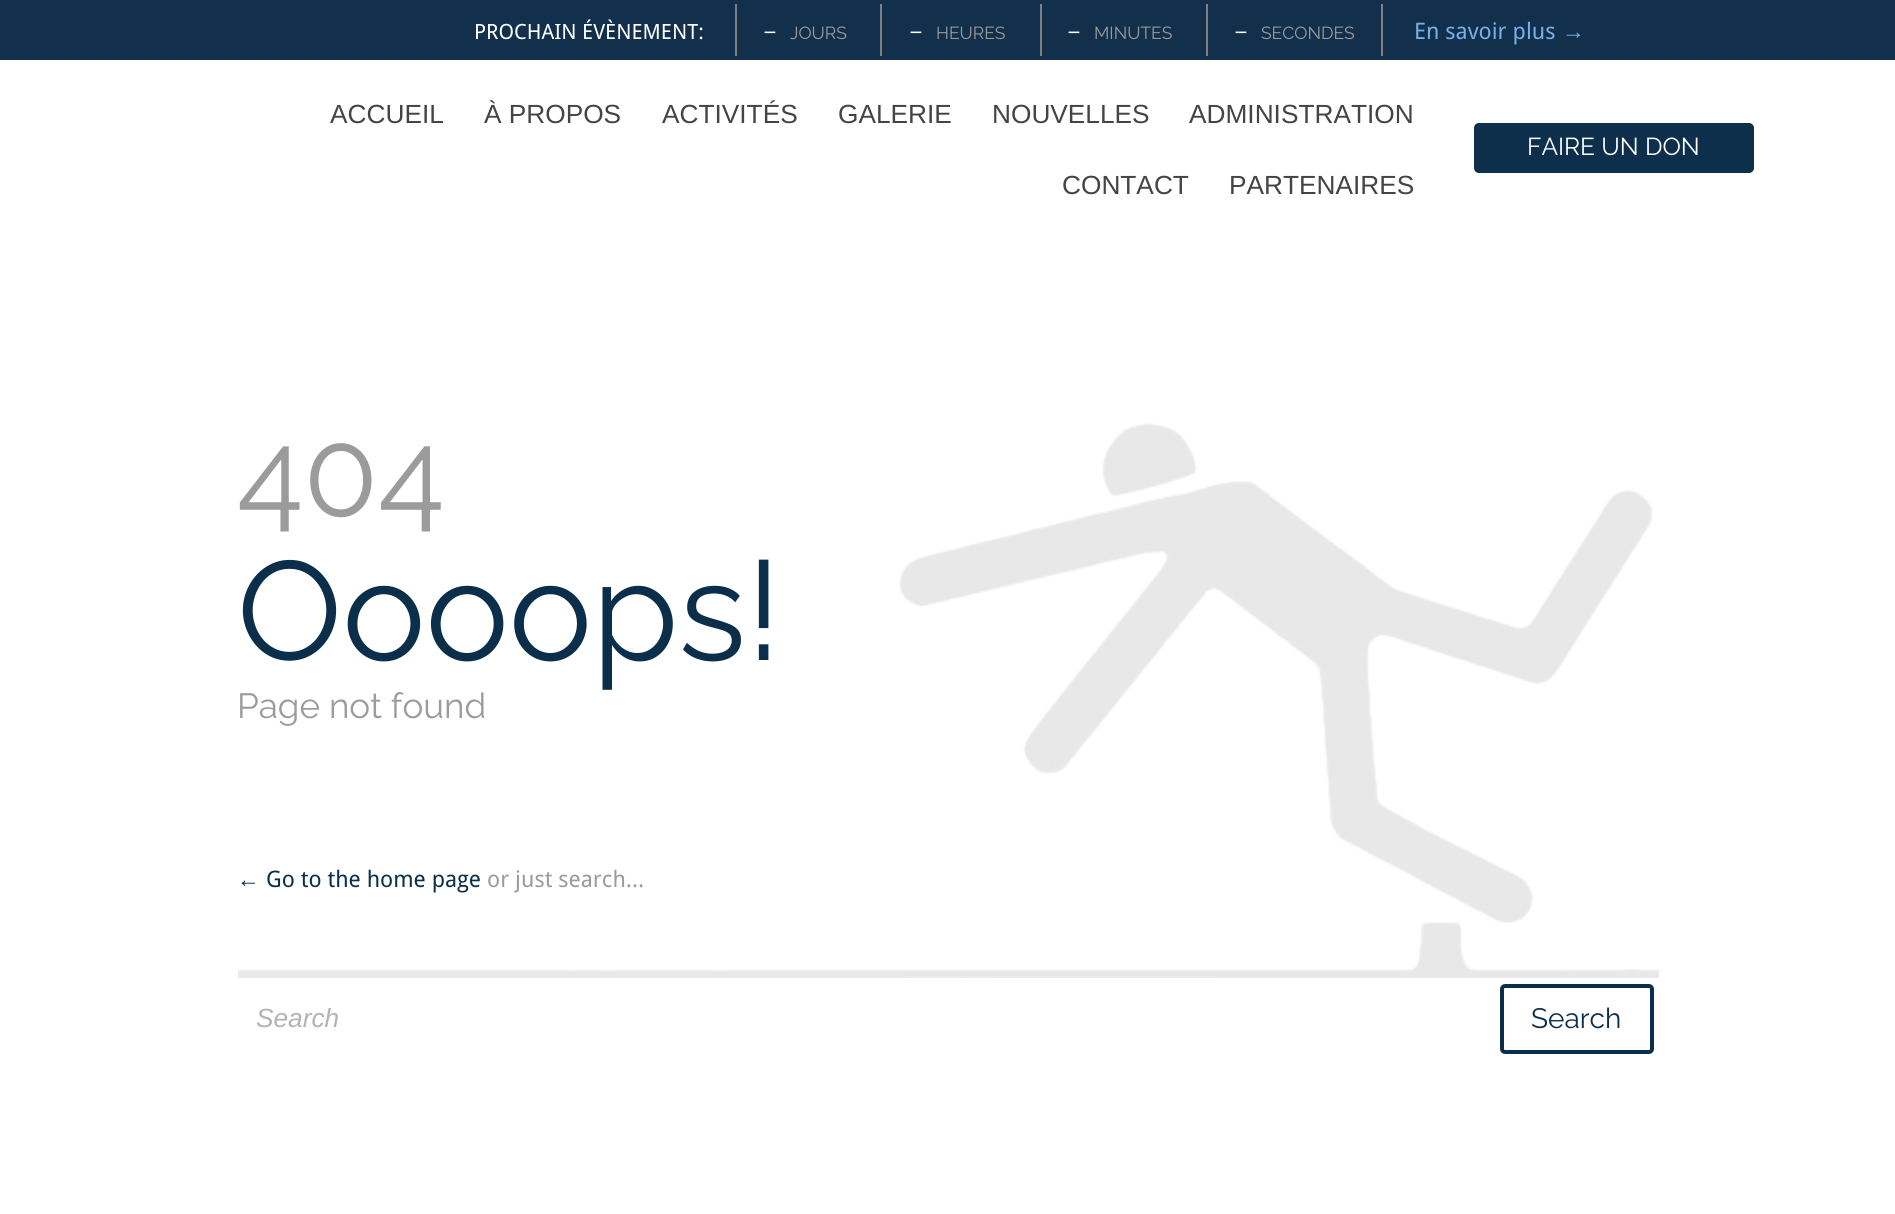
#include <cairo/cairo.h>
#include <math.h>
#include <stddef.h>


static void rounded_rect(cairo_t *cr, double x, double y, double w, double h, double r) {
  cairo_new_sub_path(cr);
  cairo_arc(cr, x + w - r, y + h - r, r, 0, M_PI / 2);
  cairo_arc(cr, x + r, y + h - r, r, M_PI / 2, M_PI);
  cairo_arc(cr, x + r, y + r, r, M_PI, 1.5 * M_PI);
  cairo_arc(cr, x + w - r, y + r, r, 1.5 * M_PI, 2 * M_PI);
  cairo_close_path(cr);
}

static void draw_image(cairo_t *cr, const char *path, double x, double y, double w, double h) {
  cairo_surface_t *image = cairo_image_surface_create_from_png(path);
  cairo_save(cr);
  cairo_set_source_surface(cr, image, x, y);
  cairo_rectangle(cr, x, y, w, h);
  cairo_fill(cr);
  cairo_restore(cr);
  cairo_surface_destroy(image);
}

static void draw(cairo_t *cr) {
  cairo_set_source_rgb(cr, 1, 1, 1);
  cairo_paint(cr);
  cairo_set_source_rgb(cr, 18 / 255.0, 47 / 255.0, 76 / 255.0);
  cairo_rectangle(cr, 0, 0, 1895, 60);
  cairo_fill(cr);
  cairo_set_source_rgb(cr, 128 / 255.0, 128 / 255.0, 128 / 255.0);
  cairo_rectangle(cr, 1381, 4, 2, 52);
  cairo_fill(cr);
  cairo_rectangle(cr, 735, 4, 2, 52);
  cairo_fill(cr);
  cairo_rectangle(cr, 880, 4, 2, 52);
  cairo_fill(cr);
  cairo_rectangle(cr, 1040, 4, 2, 52);
  cairo_fill(cr);
  cairo_rectangle(cr, 1206, 4, 2, 52);
  cairo_fill(cr);
  cairo_set_source_rgb(cr, 14 / 255.0, 47 / 255.0, 76 / 255.0);
  rounded_rect(cr, 1474, 123, 280, 50, 5);
  cairo_fill(cr);
  draw_image(cr, "images/1.png", 238, 423, 1421, 555);
  rounded_rect(cr, 1502, 986, 150, 66, 3);
  cairo_set_source_rgb(cr, 11 / 255.0, 47 / 255.0, 75 / 255.0);
  cairo_set_line_width(cr, 4);
  cairo_stroke(cr);
  cairo_select_font_face(cr, "Droid Sans", CAIRO_FONT_SLANT_NORMAL, CAIRO_FONT_WEIGHT_NORMAL);
  cairo_set_font_size(cr, 21);
  cairo_set_source_rgb(cr, 1, 1, 1);
  cairo_move_to(cr, 474, 39);
  cairo_show_text(cr, "PROCHAIN ÉVÈNEMENT:");
  cairo_select_font_face(cr, "Raleway", CAIRO_FONT_SLANT_NORMAL, CAIRO_FONT_WEIGHT_NORMAL);
  cairo_set_font_size(cr, 24.5);
  cairo_move_to(cr, 763, 39);
  cairo_show_text(cr, "–");
  cairo_set_font_size(cr, 17.5);
  cairo_set_source_rgb(cr, 155 / 255.0, 155 / 255.0, 155 / 255.0);
  cairo_move_to(cr, 790, 39);
  cairo_show_text(cr, "JOURS");
  cairo_set_font_size(cr, 24.5);
  cairo_set_source_rgb(cr, 1, 1, 1);
  cairo_move_to(cr, 909, 39);
  cairo_show_text(cr, "–");
  cairo_set_font_size(cr, 17.5);
  cairo_set_source_rgb(cr, 155 / 255.0, 155 / 255.0, 155 / 255.0);
  cairo_move_to(cr, 936, 39);
  cairo_show_text(cr, "HEURES");
  cairo_set_font_size(cr, 24.5);
  cairo_set_source_rgb(cr, 1, 1, 1);
  cairo_move_to(cr, 1067, 39);
  cairo_show_text(cr, "–");
  cairo_set_font_size(cr, 17.5);
  cairo_set_source_rgb(cr, 155 / 255.0, 155 / 255.0, 155 / 255.0);
  cairo_move_to(cr, 1094, 39);
  cairo_show_text(cr, "MINUTES");
  cairo_set_font_size(cr, 24.5);
  cairo_set_source_rgb(cr, 1, 1, 1);
  cairo_move_to(cr, 1234, 39);
  cairo_show_text(cr, "–");
  cairo_set_font_size(cr, 17.5);
  cairo_set_source_rgb(cr, 155 / 255.0, 155 / 255.0, 155 / 255.0);
  cairo_move_to(cr, 1261, 39);
  cairo_show_text(cr, "SECONDES");
  cairo_select_font_face(cr, "Droid Sans", CAIRO_FONT_SLANT_NORMAL, CAIRO_FONT_WEIGHT_NORMAL);
  cairo_set_font_size(cr, 22.75);
  cairo_set_source_rgb(cr, 118 / 255.0, 176 / 255.0, 228 / 255.0);
  cairo_move_to(cr, 1414, 39);
  cairo_show_text(cr, "En savoir plus");
  cairo_select_font_face(cr, "Liberation Serif", CAIRO_FONT_SLANT_NORMAL, CAIRO_FONT_WEIGHT_NORMAL);
  cairo_move_to(cr, 1562, 39);
  cairo_show_text(cr, "→");
  cairo_select_font_face(cr, "Liberation Sans", CAIRO_FONT_SLANT_NORMAL, CAIRO_FONT_WEIGHT_NORMAL);
  cairo_set_font_size(cr, 26.25);
  cairo_set_source_rgb(cr, 68 / 255.0, 68 / 255.0, 69 / 255.0);
  cairo_move_to(cr, 330, 123);
  cairo_show_text(cr, "ACCUEIL");
  cairo_move_to(cr, 484, 123);
  cairo_show_text(cr, "À PROPOS");
  cairo_move_to(cr, 662, 123);
  cairo_show_text(cr, "ACTIVITÉS");
  cairo_move_to(cr, 838, 123);
  cairo_show_text(cr, "GALERIE");
  cairo_move_to(cr, 992, 123);
  cairo_show_text(cr, "NOUVELLES");
  cairo_move_to(cr, 1189, 123);
  cairo_show_text(cr, "ADMINISTRATION");
  cairo_move_to(cr, 1062, 194);
  cairo_show_text(cr, "CONTACT");
  cairo_move_to(cr, 1229, 194);
  cairo_show_text(cr, "PARTENAIRES");
  cairo_select_font_face(cr, "Raleway", CAIRO_FONT_SLANT_NORMAL, CAIRO_FONT_WEIGHT_NORMAL);
  cairo_set_font_size(cr, 24.5);
  cairo_set_source_rgb(cr, 1, 1, 1);
  cairo_move_to(cr, 1527, 155);
  cairo_show_text(cr, "FAIRE UN DON");
  cairo_set_font_size(cr, 122);
  cairo_set_source_rgb(cr, 155 / 255.0, 155 / 255.0, 155 / 255.0);
  cairo_move_to(cr, 237, 516);
  cairo_show_text(cr, "404");
  cairo_set_font_size(cr, 140);
  cairo_set_source_rgb(cr, 11 / 255.0, 47 / 255.0, 75 / 255.0);
  cairo_move_to(cr, 237, 660);
  cairo_show_text(cr, "Oooops!");
  cairo_set_font_size(cr, 35);
  cairo_set_source_rgb(cr, 155 / 255.0, 155 / 255.0, 155 / 255.0);
  cairo_move_to(cr, 237, 718);
  cairo_show_text(cr, "Page not found");
  cairo_select_font_face(cr, "Liberation Serif", CAIRO_FONT_SLANT_NORMAL, CAIRO_FONT_WEIGHT_NORMAL);
  cairo_set_font_size(cr, 22.75);
  cairo_set_source_rgb(cr, 11 / 255.0, 47 / 255.0, 75 / 255.0);
  cairo_move_to(cr, 237, 887);
  cairo_show_text(cr, "←");
  cairo_select_font_face(cr, "Droid Sans", CAIRO_FONT_SLANT_NORMAL, CAIRO_FONT_WEIGHT_NORMAL);
  cairo_move_to(cr, 266, 887);
  cairo_show_text(cr, "Go to the home page");
  cairo_set_source_rgb(cr, 155 / 255.0, 155 / 255.0, 155 / 255.0);
  cairo_move_to(cr, 487, 887);
  cairo_show_text(cr, "or just search...");
  cairo_select_font_face(cr, "Liberation Sans", CAIRO_FONT_SLANT_ITALIC, CAIRO_FONT_WEIGHT_NORMAL);
  cairo_set_font_size(cr, 26.25);
  cairo_set_source_rgb(cr, 179 / 255.0, 179 / 255.0, 179 / 255.0);
  cairo_move_to(cr, 256, 1027);
  cairo_show_text(cr, "Search");
  cairo_select_font_face(cr, "Raleway", CAIRO_FONT_SLANT_NORMAL, CAIRO_FONT_WEIGHT_NORMAL);
  cairo_set_font_size(cr, 28);
  cairo_set_source_rgb(cr, 11 / 255.0, 47 / 255.0, 75 / 255.0);
  cairo_move_to(cr, 1531, 1028);
  cairo_show_text(cr, "Search");
}

int main(void) {
  cairo_surface_t *surface = cairo_image_surface_create(CAIRO_FORMAT_RGB24, 1895, 1214);
  cairo_t *cr = cairo_create(surface);
  cairo_font_options_t *options = cairo_font_options_create();
  cairo_font_options_set_hint_metrics(options, CAIRO_HINT_METRICS_OFF);
  cairo_font_options_set_hint_style(options, CAIRO_HINT_STYLE_NONE);
  cairo_set_font_options(cr, options);
  cairo_set_miter_limit(cr, 4);
  draw(cr);
  cairo_surface_write_to_png(surface, "out.png");
  cairo_font_options_destroy(options);
  cairo_destroy(cr);
  cairo_surface_destroy(surface);
  return 0;
}
